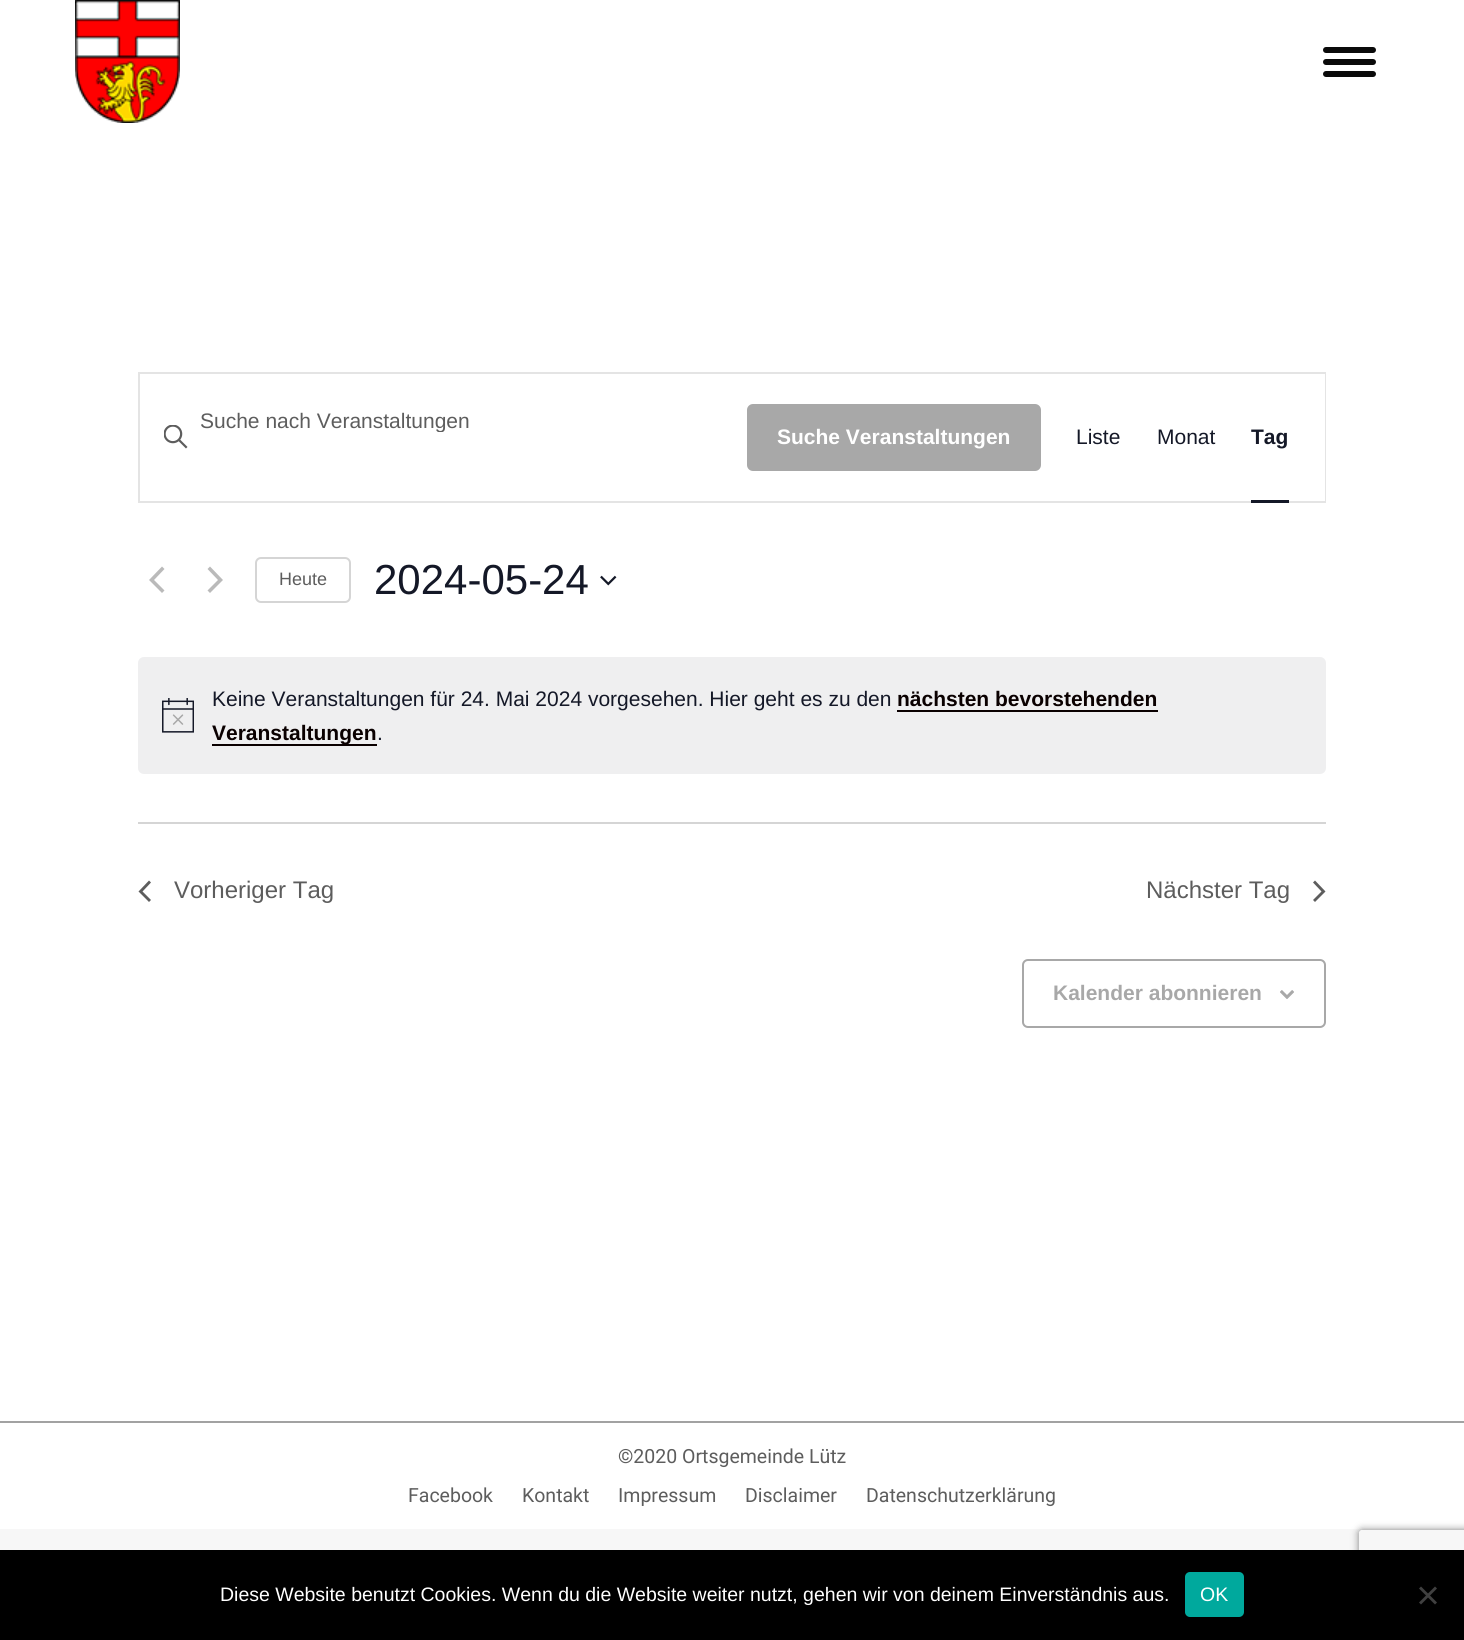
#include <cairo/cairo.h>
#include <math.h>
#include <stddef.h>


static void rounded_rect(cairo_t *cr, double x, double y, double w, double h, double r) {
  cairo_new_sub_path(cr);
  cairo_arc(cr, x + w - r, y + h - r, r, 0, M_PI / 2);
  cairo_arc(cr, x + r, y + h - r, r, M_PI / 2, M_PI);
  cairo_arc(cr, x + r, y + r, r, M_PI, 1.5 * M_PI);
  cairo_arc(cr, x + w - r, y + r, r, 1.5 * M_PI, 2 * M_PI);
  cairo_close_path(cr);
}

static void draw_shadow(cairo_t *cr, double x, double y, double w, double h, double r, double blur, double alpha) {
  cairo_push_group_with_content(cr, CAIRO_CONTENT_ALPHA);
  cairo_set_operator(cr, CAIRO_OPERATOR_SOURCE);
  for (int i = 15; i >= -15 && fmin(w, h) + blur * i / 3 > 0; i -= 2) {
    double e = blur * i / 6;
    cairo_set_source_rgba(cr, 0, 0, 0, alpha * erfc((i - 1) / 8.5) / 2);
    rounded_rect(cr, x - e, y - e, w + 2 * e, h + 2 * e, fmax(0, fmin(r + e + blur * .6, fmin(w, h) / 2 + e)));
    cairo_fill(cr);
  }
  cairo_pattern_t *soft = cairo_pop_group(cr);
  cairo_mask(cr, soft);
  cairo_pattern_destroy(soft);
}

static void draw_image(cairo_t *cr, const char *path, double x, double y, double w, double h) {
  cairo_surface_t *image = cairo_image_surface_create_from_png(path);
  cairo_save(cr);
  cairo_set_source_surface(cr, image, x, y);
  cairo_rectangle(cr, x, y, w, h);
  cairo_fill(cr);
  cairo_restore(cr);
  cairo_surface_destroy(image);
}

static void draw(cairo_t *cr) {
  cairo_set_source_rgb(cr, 247 / 255.0, 247 / 255.0, 247 / 255.0);
  cairo_paint(cr);
  cairo_set_source_rgb(cr, 1, 1, 1);
  cairo_rectangle(cr, 0, 0, 1464, 1529);
  cairo_fill(cr);
  draw_image(cr, "images/1.png", 75, 0, 105, 123);
  cairo_set_source_rgb(cr, 10 / 255.0, 10 / 255.0, 10 / 255.0);
  rounded_rect(cr, 1323, 47, 53, 6, 3);
  cairo_fill(cr);
  rounded_rect(cr, 1323, 59, 53, 6, 3);
  cairo_fill(cr);
  rounded_rect(cr, 1323, 71, 53, 6, 3);
  cairo_fill(cr);
  cairo_rectangle(cr, 139, 373, 1186, 129);
  cairo_set_source_rgb(cr, 228 / 255.0, 228 / 255.0, 228 / 255.0);
  cairo_stroke(cr);
  draw_image(cr, "images/2.png", 164, 425, 24, 24);
  cairo_set_source_rgb(cr, 168 / 255.0, 168 / 255.0, 168 / 255.0);
  rounded_rect(cr, 747, 404, 294, 67, 6);
  cairo_fill(cr);
  cairo_set_source_rgb(cr, 1, 1, 1);
  cairo_rectangle(cr, 1324, 374, 1, 127);
  cairo_fill(cr);
  cairo_set_source_rgb(cr, 20 / 255.0, 24 / 255.0, 39 / 255.0);
  cairo_rectangle(cr, 1251, 500, 38, 3);
  cairo_fill(cr);
  cairo_set_source_rgb(cr, 186 / 255.0, 186 / 255.0, 186 / 255.0);
  cairo_new_path(cr);
  cairo_move_to(cr, 164.5, 590.5);
  cairo_line_to(cr, 162, 593);
  cairo_line_to(cr, 149, 580);
  cairo_line_to(cr, 162, 566.5);
  cairo_line_to(cr, 164.5, 569);
  cairo_line_to(cr, 154, 580);
  cairo_close_path(cr);
  cairo_fill(cr);
  cairo_new_path(cr);
  cairo_move_to(cr, 207.5, 569);
  cairo_line_to(cr, 210, 566.5);
  cairo_line_to(cr, 223, 580);
  cairo_line_to(cr, 210, 593);
  cairo_line_to(cr, 207.5, 590.5);
  cairo_line_to(cr, 218, 580);
  cairo_close_path(cr);
  cairo_fill(cr);
  rounded_rect(cr, 256, 558, 94, 44, 5);
  cairo_set_source_rgb(cr, 213 / 255.0, 213 / 255.0, 213 / 255.0);
  cairo_stroke(cr);
  draw_image(cr, "images/3.png", 600, 575, 17, 11);
  cairo_set_source_rgb(cr, 239 / 255.0, 239 / 255.0, 240 / 255.0);
  rounded_rect(cr, 138, 657, 1188, 117, 6);
  cairo_fill(cr);
  draw_image(cr, "images/4.png", 162, 698, 32, 35);
  cairo_set_source_rgb(cr, 10 / 255.0, 0, 0);
  cairo_rectangle(cr, 897, 710, 261, 2);
  cairo_fill(cr);
  cairo_rectangle(cr, 212, 744, 165, 2);
  cairo_fill(cr);
  cairo_set_source_rgb(cr, 213 / 255.0, 213 / 255.0, 213 / 255.0);
  cairo_rectangle(cr, 138, 822, 1188, 2);
  cairo_fill(cr);
  cairo_set_source_rgb(cr, 93 / 255.0, 93 / 255.0, 93 / 255.0);
  cairo_new_path(cr);
  cairo_move_to(cr, 151, 900);
  cairo_line_to(cr, 149, 902);
  cairo_line_to(cr, 138.5, 891.5);
  cairo_line_to(cr, 149, 880.5);
  cairo_line_to(cr, 151, 882.5);
  cairo_line_to(cr, 142.5, 891.5);
  cairo_close_path(cr);
  cairo_fill(cr);
  cairo_new_path(cr);
  cairo_move_to(cr, 1313, 882.5);
  cairo_line_to(cr, 1315, 880.5);
  cairo_line_to(cr, 1325.5, 891.5);
  cairo_line_to(cr, 1315, 902);
  cairo_line_to(cr, 1313, 900);
  cairo_line_to(cr, 1321.5, 891.5);
  cairo_close_path(cr);
  cairo_fill(cr);
  rounded_rect(cr, 1023, 960, 302, 67, 5);
  cairo_set_source_rgb(cr, 168 / 255.0, 168 / 255.0, 168 / 255.0);
  cairo_stroke(cr);
  draw_image(cr, "images/5.png", 1280, 990, 14, 9);
  cairo_set_source_rgb(cr, 162 / 255.0, 162 / 255.0, 162 / 255.0);
  cairo_rectangle(cr, 0, 1421, 1464, 2);
  cairo_fill(cr);
  cairo_save(cr);
  cairo_set_fill_rule(cr, CAIRO_FILL_RULE_EVEN_ODD);
  cairo_new_path(cr);
  cairo_move_to(cr, 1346, 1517);
  cairo_line_to(cr, 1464, 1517);
  cairo_line_to(cr, 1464, 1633);
  cairo_line_to(cr, 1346, 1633);
  cairo_close_path(cr);
  cairo_move_to(cr, 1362, 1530);
  cairo_line_to(cr, 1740, 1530);
  cairo_curve_to(cr, 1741.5, 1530, 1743, 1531.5, 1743, 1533);
  cairo_line_to(cr, 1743, 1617);
  cairo_curve_to(cr, 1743, 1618.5, 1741.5, 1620, 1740, 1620);
  cairo_line_to(cr, 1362, 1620);
  cairo_curve_to(cr, 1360.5, 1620, 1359, 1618.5, 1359, 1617);
  cairo_line_to(cr, 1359, 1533);
  cairo_curve_to(cr, 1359, 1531.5, 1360.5, 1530, 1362, 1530);
  cairo_close_path(cr);
  cairo_clip(cr);
  cairo_set_source_rgb(cr, 128 / 255.0, 128 / 255.0, 128 / 255.0);
  draw_shadow(cr, 1359, 1530, 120, 90, 3, 4, 1);
  cairo_restore(cr);
  cairo_set_source_rgb(cr, 0, 0, 0);
  cairo_rectangle(cr, 0, 1550, 1464, 90);
  cairo_fill(cr);
  cairo_set_source_rgb(cr, 0, 169 / 255.0, 157 / 255.0);
  rounded_rect(cr, 1185, 1572, 59, 45, 5);
  cairo_fill(cr);
  cairo_set_source_rgb(cr, 64 / 255.0, 64 / 255.0, 64 / 255.0);
  cairo_new_path(cr);
  cairo_move_to(cr, 1435, 1586.5);
  cairo_line_to(cr, 1437, 1588.5);
  cairo_line_to(cr, 1421, 1604.5);
  cairo_line_to(cr, 1419, 1602.5);
  cairo_close_path(cr);
  cairo_fill(cr);
  cairo_new_path(cr);
  cairo_move_to(cr, 1419, 1588.5);
  cairo_line_to(cr, 1421, 1586.5);
  cairo_line_to(cr, 1437, 1602.5);
  cairo_line_to(cr, 1435, 1604.5);
  cairo_close_path(cr);
  cairo_fill(cr);
  cairo_save(cr);
  cairo_rectangle(cr, 200, 408, 517, 24);
  cairo_clip(cr);
  cairo_select_font_face(cr, "Liberation Sans", CAIRO_FONT_SLANT_NORMAL, CAIRO_FONT_WEIGHT_NORMAL);
  cairo_set_font_size(cr, 21);
  cairo_set_source_rgb(cr, 93 / 255.0, 93 / 255.0, 93 / 255.0);
  cairo_move_to(cr, 200, 428);
  cairo_show_text(cr, "Suche nach Veranstaltungen");
  cairo_restore(cr);
  cairo_select_font_face(cr, "Liberation Sans", CAIRO_FONT_SLANT_NORMAL, CAIRO_FONT_WEIGHT_BOLD);
  cairo_set_font_size(cr, 21);
  cairo_set_source_rgb(cr, 1, 1, 1);
  cairo_move_to(cr, 777, 444);
  cairo_show_text(cr, "Suche Veranstaltungen");
  cairo_select_font_face(cr, "Liberation Sans", CAIRO_FONT_SLANT_NORMAL, CAIRO_FONT_WEIGHT_NORMAL);
  cairo_set_source_rgb(cr, 20 / 255.0, 24 / 255.0, 39 / 255.0);
  cairo_move_to(cr, 1076, 444);
  cairo_show_text(cr, "Liste");
  cairo_move_to(cr, 1157, 444);
  cairo_show_text(cr, "Monat");
  cairo_select_font_face(cr, "Liberation Sans", CAIRO_FONT_SLANT_NORMAL, CAIRO_FONT_WEIGHT_BOLD);
  cairo_move_to(cr, 1251, 444);
  cairo_show_text(cr, "Tag");
  cairo_select_font_face(cr, "Liberation Sans", CAIRO_FONT_SLANT_NORMAL, CAIRO_FONT_WEIGHT_NORMAL);
  cairo_set_font_size(cr, 18);
  cairo_set_source_rgb(cr, 93 / 255.0, 93 / 255.0, 93 / 255.0);
  cairo_move_to(cr, 279, 585);
  cairo_show_text(cr, "Heute");
  cairo_set_font_size(cr, 42);
  cairo_set_source_rgb(cr, 20 / 255.0, 24 / 255.0, 39 / 255.0);
  cairo_move_to(cr, 374, 594);
  cairo_show_text(cr, "2024-05-24");
  cairo_set_font_size(cr, 21);
  cairo_move_to(cr, 212, 706);
  cairo_show_text(cr, "Keine Veranstaltungen für 24. Mai 2024 vorgesehen. Hier geht es zu den");
  cairo_select_font_face(cr, "Liberation Sans", CAIRO_FONT_SLANT_NORMAL, CAIRO_FONT_WEIGHT_BOLD);
  cairo_set_source_rgb(cr, 10 / 255.0, 0, 0);
  cairo_move_to(cr, 897, 706);
  cairo_show_text(cr, "nächsten bevorstehenden");
  cairo_move_to(cr, 212, 740);
  cairo_show_text(cr, "Veranstaltungen");
  cairo_select_font_face(cr, "Liberation Sans", CAIRO_FONT_SLANT_NORMAL, CAIRO_FONT_WEIGHT_NORMAL);
  cairo_set_source_rgb(cr, 20 / 255.0, 24 / 255.0, 39 / 255.0);
  cairo_move_to(cr, 377, 740);
  cairo_show_text(cr, ".");
  cairo_set_font_size(cr, 24);
  cairo_set_source_rgb(cr, 93 / 255.0, 93 / 255.0, 93 / 255.0);
  cairo_move_to(cr, 174, 898);
  cairo_show_text(cr, "Vorheriger Tag");
  cairo_move_to(cr, 1146, 898);
  cairo_show_text(cr, "Nächster Tag");
  cairo_select_font_face(cr, "Liberation Sans", CAIRO_FONT_SLANT_NORMAL, CAIRO_FONT_WEIGHT_BOLD);
  cairo_set_font_size(cr, 21);
  cairo_set_source_rgb(cr, 168 / 255.0, 168 / 255.0, 168 / 255.0);
  cairo_move_to(cr, 1053, 1000);
  cairo_show_text(cr, "Kalender abonnieren");
  cairo_select_font_face(cr, "Roboto", CAIRO_FONT_SLANT_NORMAL, CAIRO_FONT_WEIGHT_NORMAL);
  cairo_set_font_size(cr, 19.5);
  cairo_set_source_rgb(cr, 93 / 255.0, 93 / 255.0, 93 / 255.0);
  cairo_move_to(cr, 618, 1463);
  cairo_show_text(cr, "©2020 Ortsgemeinde Lütz");
  cairo_move_to(cr, 408, 1502);
  cairo_show_text(cr, "Facebook");
  cairo_move_to(cr, 522, 1502);
  cairo_show_text(cr, "Kontakt");
  cairo_move_to(cr, 618, 1502);
  cairo_show_text(cr, "Impressum");
  cairo_move_to(cr, 745, 1502);
  cairo_show_text(cr, "Disclaimer");
  cairo_move_to(cr, 866, 1502);
  cairo_show_text(cr, "Datenschutzerklärung");
  cairo_select_font_face(cr, "Liberation Sans", CAIRO_FONT_SLANT_NORMAL, CAIRO_FONT_WEIGHT_NORMAL);
  cairo_set_source_rgb(cr, 1, 1, 1);
  cairo_move_to(cr, 220, 1601);
  cairo_show_text(cr, "Diese Website benutzt Cookies. Wenn du die Website weiter nutzt, gehen wir von deinem Einverständnis aus.");
  cairo_move_to(cr, 1200, 1601);
  cairo_show_text(cr, "OK");
}

int main(void) {
  cairo_surface_t *surface = cairo_image_surface_create(CAIRO_FORMAT_RGB24, 1464, 1640);
  cairo_t *cr = cairo_create(surface);
  cairo_font_options_t *options = cairo_font_options_create();
  cairo_font_options_set_hint_metrics(options, CAIRO_HINT_METRICS_OFF);
  cairo_font_options_set_hint_style(options, CAIRO_HINT_STYLE_NONE);
  cairo_set_font_options(cr, options);
  cairo_set_miter_limit(cr, 4);
  draw(cr);
  cairo_surface_write_to_png(surface, "out.png");
  cairo_font_options_destroy(options);
  cairo_destroy(cr);
  cairo_surface_destroy(surface);
  return 0;
}
